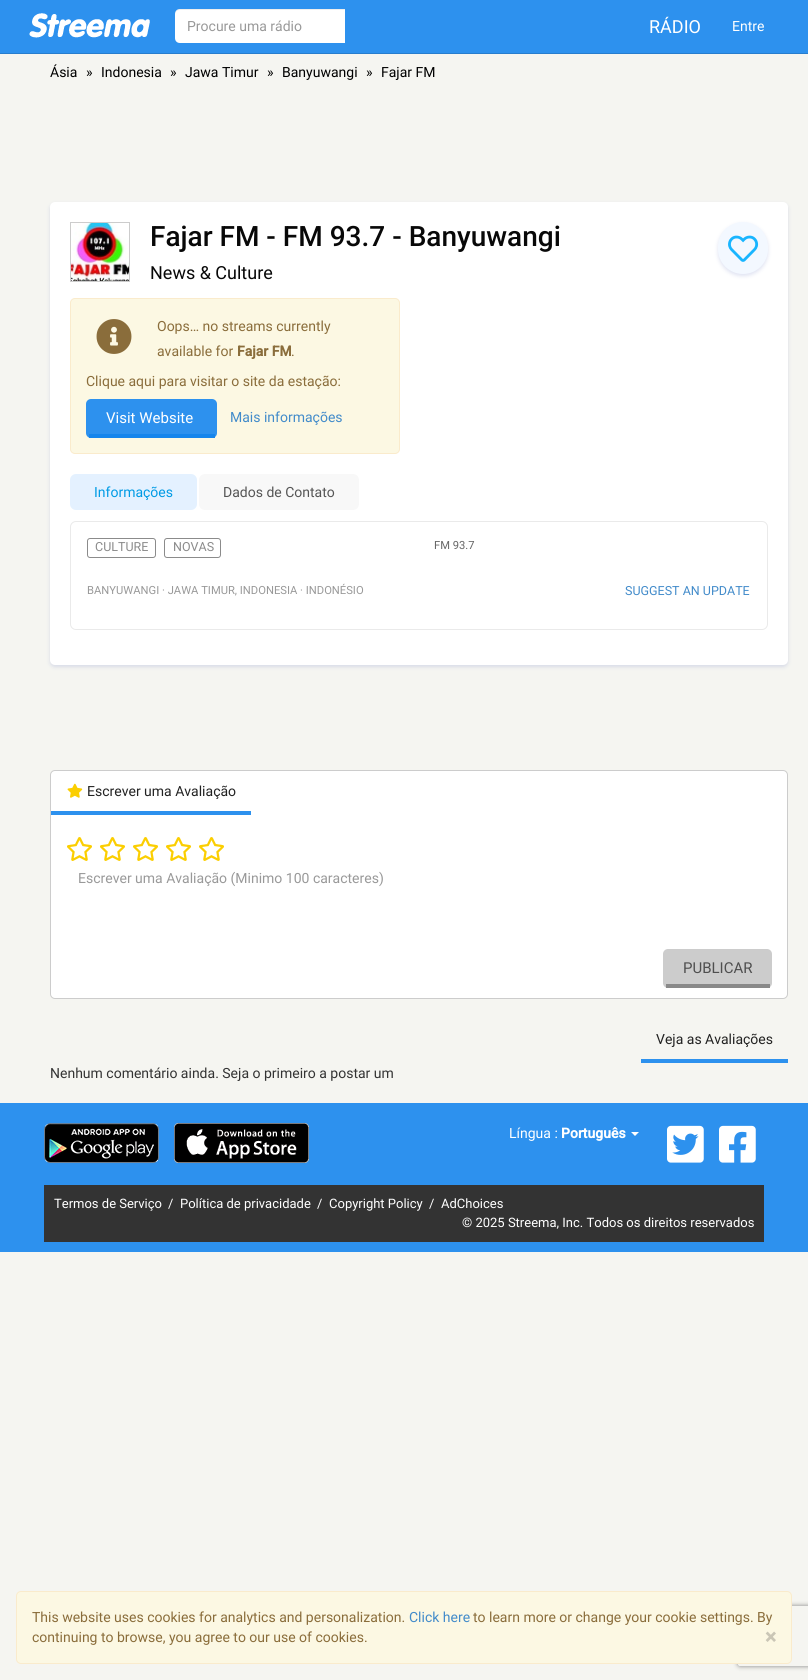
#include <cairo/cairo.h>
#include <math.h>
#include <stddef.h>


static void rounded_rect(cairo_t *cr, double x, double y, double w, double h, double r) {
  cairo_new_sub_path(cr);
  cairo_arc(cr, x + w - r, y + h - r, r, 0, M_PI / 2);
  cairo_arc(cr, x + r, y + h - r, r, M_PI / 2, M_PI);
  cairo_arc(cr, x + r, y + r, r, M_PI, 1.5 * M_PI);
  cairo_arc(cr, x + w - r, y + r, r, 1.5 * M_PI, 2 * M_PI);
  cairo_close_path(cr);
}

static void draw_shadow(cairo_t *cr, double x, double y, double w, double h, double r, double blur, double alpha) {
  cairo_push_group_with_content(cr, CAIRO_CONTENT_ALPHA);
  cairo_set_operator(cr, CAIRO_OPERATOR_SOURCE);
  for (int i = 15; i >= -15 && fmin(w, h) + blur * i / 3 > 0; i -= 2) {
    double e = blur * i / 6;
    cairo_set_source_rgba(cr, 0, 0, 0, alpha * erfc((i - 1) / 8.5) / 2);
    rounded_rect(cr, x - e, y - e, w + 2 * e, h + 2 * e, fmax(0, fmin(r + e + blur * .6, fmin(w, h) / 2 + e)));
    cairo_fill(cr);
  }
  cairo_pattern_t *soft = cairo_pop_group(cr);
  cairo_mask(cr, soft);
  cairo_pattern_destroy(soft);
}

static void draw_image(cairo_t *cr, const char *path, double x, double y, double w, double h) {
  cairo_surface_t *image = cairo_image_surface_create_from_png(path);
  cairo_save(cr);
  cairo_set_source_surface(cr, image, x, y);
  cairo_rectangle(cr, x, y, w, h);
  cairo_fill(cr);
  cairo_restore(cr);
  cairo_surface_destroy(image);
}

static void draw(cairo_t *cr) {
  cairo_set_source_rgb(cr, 245 / 255.0, 245 / 255.0, 241 / 255.0);
  cairo_paint(cr);
  cairo_set_source_rgb(cr, 45 / 255.0, 145 / 255.0, 238 / 255.0);
  cairo_rectangle(cr, 0, 0, 808, 53);
  cairo_fill(cr);
  cairo_set_source_rgb(cr, 39 / 255.0, 125 / 255.0, 205 / 255.0);
  cairo_rectangle(cr, 0, 53, 808, 1);
  cairo_fill(cr);
  draw_image(cr, "images/1.png", 29, 13, 121, 25);
  cairo_set_source_rgb(cr, 1, 1, 1);
  cairo_new_path(cr);
  cairo_move_to(cr, 180, 9);
  cairo_line_to(cr, 345, 9);
  cairo_line_to(cr, 345, 43);
  cairo_line_to(cr, 180, 43);
  cairo_curve_to(cr, 177, 43, 175, 41, 175, 38);
  cairo_line_to(cr, 175, 14);
  cairo_curve_to(cr, 175, 11, 177, 9, 180, 9);
  cairo_close_path(cr);
  cairo_fill(cr);
  cairo_set_source_rgba(cr, 0, 0, 0, 0.07);
  cairo_new_path(cr);
  cairo_move_to(cr, 180, 10);
  cairo_line_to(cr, 345, 10);
  cairo_line_to(cr, 345, 9);
  cairo_line_to(cr, 180, 9);
  cairo_curve_to(cr, 177, 9, 175, 11, 175, 14);
  cairo_line_to(cr, 175, 15);
  cairo_curve_to(cr, 175, 12, 177, 10, 180, 10);
  cairo_close_path(cr);
  cairo_fill(cr);
  cairo_set_source_rgb(cr, 127 / 255.0, 139 / 255.0, 201 / 255.0);
  draw_shadow(cr, 50, 204, 738, 463, 5, 2, 0.25);
  cairo_set_source_rgb(cr, 1, 1, 1);
  rounded_rect(cr, 50, 202, 738, 463, 5);
  cairo_fill(cr);
  cairo_rectangle(cr, 70.5, 222.5, 59, 59);
  cairo_set_source_rgb(cr, 204 / 255.0, 204 / 255.0, 204 / 255.0);
  cairo_set_line_width(cr, 1);
  cairo_stroke(cr);
  draw_image(cr, "images/2.png", 71, 223, 58, 58);
  cairo_set_source_rgb(cr, 127 / 255.0, 139 / 255.0, 201 / 255.0);
  draw_shadow(cr, 718, 224, 50, 52, 25, 2, 0.25);
  cairo_set_source_rgb(cr, 243 / 255.0, 248 / 255.0, 1);
  rounded_rect(cr, 718, 222, 50, 52, 25);
  cairo_fill(cr);
  draw_image(cr, "images/3.png", 728, 235, 31, 27);
  cairo_set_source_rgb(cr, 252 / 255.0, 248 / 255.0, 227 / 255.0);
  rounded_rect(cr, 70.5, 298.5, 329, 155, 4.5);
  cairo_fill_preserve(cr);
  cairo_set_source_rgb(cr, 250 / 255.0, 235 / 255.0, 204 / 255.0);
  cairo_stroke(cr);
  draw_image(cr, "images/4.png", 96, 319, 36, 35);
  cairo_set_source_rgb(cr, 45 / 255.0, 145 / 255.0, 238 / 255.0);
  rounded_rect(cr, 86, 399, 131, 39, 5);
  cairo_fill(cr);
  cairo_set_source_rgb(cr, 21 / 255.0, 133 / 255.0, 236 / 255.0);
  cairo_rectangle(cr, 89, 434, 126, 4);
  cairo_fill(cr);
  cairo_set_source_rgb(cr, 228 / 255.0, 241 / 255.0, 1);
  rounded_rect(cr, 70, 474, 127, 36, 6);
  cairo_fill(cr);
  cairo_set_source_rgb(cr, 248 / 255.0, 248 / 255.0, 248 / 255.0);
  rounded_rect(cr, 199, 474, 160, 36, 6);
  cairo_fill(cr);
  rounded_rect(cr, 70.5, 521.5, 697, 108, 5.5);
  cairo_set_source_rgb(cr, 234 / 255.0, 234 / 255.0, 234 / 255.0);
  cairo_stroke(cr);
  rounded_rect(cr, 87.5, 538.5, 68, 19, 2.5);
  cairo_set_source_rgb(cr, 139 / 255.0, 139 / 255.0, 139 / 255.0);
  cairo_stroke(cr);
  rounded_rect(cr, 164.5, 538.5, 56, 19, 2.5);
  cairo_stroke(cr);
  cairo_set_source_rgb(cr, 1, 1, 1);
  rounded_rect(cr, 50.5, 770.5, 737, 228, 4.5);
  cairo_fill_preserve(cr);
  cairo_set_source_rgb(cr, 204 / 255.0, 204 / 255.0, 204 / 255.0);
  cairo_stroke(cr);
  cairo_set_source_rgb(cr, 45 / 255.0, 145 / 255.0, 238 / 255.0);
  cairo_rectangle(cr, 51, 811, 200, 4);
  cairo_fill(cr);
  draw_image(cr, "images/5.png", 67, 783, 16, 15);
  draw_image(cr, "images/6.png", 67, 837, 25, 24);
  draw_image(cr, "images/6.png", 100, 837, 25, 24);
  draw_image(cr, "images/6.png", 133, 837, 25, 24);
  draw_image(cr, "images/6.png", 166, 837, 25, 24);
  draw_image(cr, "images/6.png", 199, 837, 25, 24);
  cairo_set_source_rgb(cr, 204 / 255.0, 204 / 255.0, 204 / 255.0);
  rounded_rect(cr, 663, 949, 109, 39, 5);
  cairo_fill(cr);
  cairo_set_source_rgb(cr, 137 / 255.0, 137 / 255.0, 137 / 255.0);
  cairo_rectangle(cr, 666, 984, 104, 4);
  cairo_fill(cr);
  cairo_save(cr);
  cairo_set_fill_rule(cr, CAIRO_FILL_RULE_EVEN_ODD);
  cairo_new_path(cr);
  cairo_move_to(cr, 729, 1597);
  cairo_line_to(cr, 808, 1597);
  cairo_line_to(cr, 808, 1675);
  cairo_line_to(cr, 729, 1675);
  cairo_close_path(cr);
  cairo_move_to(cr, 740, 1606);
  cairo_line_to(cr, 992, 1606);
  cairo_curve_to(cr, 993, 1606, 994, 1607, 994, 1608);
  cairo_line_to(cr, 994, 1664);
  cairo_curve_to(cr, 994, 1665, 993, 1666, 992, 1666);
  cairo_line_to(cr, 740, 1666);
  cairo_curve_to(cr, 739, 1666, 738, 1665, 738, 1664);
  cairo_line_to(cr, 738, 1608);
  cairo_curve_to(cr, 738, 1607, 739, 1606, 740, 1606);
  cairo_close_path(cr);
  cairo_clip(cr);
  cairo_set_source_rgb(cr, 128 / 255.0, 128 / 255.0, 128 / 255.0);
  draw_shadow(cr, 738, 1606, 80, 60, 2, 2.5, 1);
  cairo_restore(cr);
  cairo_set_source_rgb(cr, 45 / 255.0, 145 / 255.0, 238 / 255.0);
  cairo_rectangle(cr, 641, 1059, 147, 4);
  cairo_fill(cr);
  cairo_rectangle(cr, 0, 1103, 808, 149);
  cairo_fill(cr);
  draw_image(cr, "images/7.png", 44, 1123, 115, 40);
  draw_image(cr, "images/8.png", 174, 1123, 135, 40);
  cairo_set_source_rgb(cr, 1, 1, 1);
  cairo_new_path(cr);
  cairo_move_to(cr, 631, 1132);
  cairo_line_to(cr, 639, 1132);
  cairo_line_to(cr, 635, 1136);
  cairo_close_path(cr);
  cairo_fill(cr);
  draw_image(cr, "images/9.png", 667, 1125, 37, 38);
  draw_image(cr, "images/10.png", 719, 1125, 37, 38);
  cairo_set_source_rgb(cr, 51 / 255.0, 51 / 255.0, 51 / 255.0);
  cairo_rectangle(cr, 44, 1185, 720, 57);
  cairo_fill(cr);
  cairo_set_source_rgb(cr, 252 / 255.0, 248 / 255.0, 227 / 255.0);
  rounded_rect(cr, 16.5, 1591.5, 775, 72, 4.5);
  cairo_fill_preserve(cr);
  cairo_set_source_rgb(cr, 250 / 255.0, 235 / 255.0, 204 / 255.0);
  cairo_stroke(cr);
  cairo_select_font_face(cr, "Roboto", CAIRO_FONT_SLANT_NORMAL, CAIRO_FONT_WEIGHT_NORMAL);
  cairo_set_font_size(cr, 14);
  cairo_set_source_rgb(cr, 153 / 255.0, 153 / 255.0, 153 / 255.0);
  cairo_move_to(cr, 187, 31);
  cairo_show_text(cr, "Procure uma rádio");
  cairo_set_font_size(cr, 18);
  cairo_set_source_rgb(cr, 1, 1, 1);
  cairo_move_to(cr, 649, 33);
  cairo_show_text(cr, "RÁDIO");
  cairo_set_font_size(cr, 14);
  cairo_move_to(cr, 732, 31);
  cairo_show_text(cr, "Entre");
  cairo_set_source_rgb(cr, 0, 0, 0);
  cairo_move_to(cr, 50, 77);
  cairo_show_text(cr, "Ásia");
  cairo_move_to(cr, 86, 77);
  cairo_show_text(cr, "»");
  cairo_move_to(cr, 101, 77);
  cairo_show_text(cr, "Indonesia");
  cairo_move_to(cr, 170, 77);
  cairo_show_text(cr, "»");
  cairo_move_to(cr, 185, 77);
  cairo_show_text(cr, "Jawa Timur");
  cairo_move_to(cr, 267, 77);
  cairo_show_text(cr, "»");
  cairo_move_to(cr, 282, 77);
  cairo_show_text(cr, "Banyuwangi");
  cairo_move_to(cr, 366, 77);
  cairo_show_text(cr, "»");
  cairo_move_to(cr, 381, 77);
  cairo_show_text(cr, "Fajar FM");
  cairo_select_font_face(cr, "Roboto Medium", CAIRO_FONT_SLANT_NORMAL, CAIRO_FONT_WEIGHT_NORMAL);
  cairo_set_font_size(cr, 28);
  cairo_set_source_rgb(cr, 8 / 255.0, 8 / 255.0, 8 / 255.0);
  cairo_move_to(cr, 150, 246);
  cairo_show_text(cr, "Fajar FM - FM 93.7 - Banyuwangi");
  cairo_select_font_face(cr, "Roboto", CAIRO_FONT_SLANT_NORMAL, CAIRO_FONT_WEIGHT_NORMAL);
  cairo_set_font_size(cr, 18);
  cairo_move_to(cr, 150, 279);
  cairo_show_text(cr, "News & Culture");
  cairo_set_font_size(cr, 14);
  cairo_set_source_rgb(cr, 138 / 255.0, 109 / 255.0, 59 / 255.0);
  cairo_move_to(cr, 157, 331);
  cairo_show_text(cr, "Oops… no streams currently");
  cairo_move_to(cr, 157, 356);
  cairo_show_text(cr, "available for");
  cairo_select_font_face(cr, "Roboto", CAIRO_FONT_SLANT_NORMAL, CAIRO_FONT_WEIGHT_BOLD);
  cairo_move_to(cr, 237, 356);
  cairo_show_text(cr, "Fajar FM");
  cairo_select_font_face(cr, "Roboto", CAIRO_FONT_SLANT_NORMAL, CAIRO_FONT_WEIGHT_NORMAL);
  cairo_move_to(cr, 291, 356);
  cairo_show_text(cr, ".");
  cairo_move_to(cr, 86, 386);
  cairo_show_text(cr, "Clique aqui para visitar o site da estação:");
  cairo_set_font_size(cr, 15);
  cairo_set_source_rgb(cr, 1, 1, 1);
  cairo_move_to(cr, 106, 423);
  cairo_show_text(cr, "Visit Website");
  cairo_set_font_size(cr, 14);
  cairo_set_source_rgb(cr, 66 / 255.0, 139 / 255.0, 202 / 255.0);
  cairo_move_to(cr, 230, 422);
  cairo_show_text(cr, "Mais informações");
  cairo_set_source_rgb(cr, 0, 155 / 255.0, 229 / 255.0);
  cairo_move_to(cr, 94, 497);
  cairo_show_text(cr, "Informações");
  cairo_set_source_rgb(cr, 85 / 255.0, 85 / 255.0, 85 / 255.0);
  cairo_move_to(cr, 223, 497);
  cairo_show_text(cr, "Dados de Contato");
  cairo_set_font_size(cr, 12.5);
  cairo_set_source_rgb(cr, 139 / 255.0, 139 / 255.0, 139 / 255.0);
  cairo_move_to(cr, 95, 551);
  cairo_show_text(cr, "CULTURE");
  cairo_move_to(cr, 173, 551);
  cairo_show_text(cr, "NOVAS");
  cairo_set_font_size(cr, 11.2);
  cairo_set_source_rgb(cr, 102 / 255.0, 102 / 255.0, 102 / 255.0);
  cairo_move_to(cr, 434, 549);
  cairo_show_text(cr, "FM 93.7");
  cairo_set_source_rgb(cr, 153 / 255.0, 153 / 255.0, 153 / 255.0);
  cairo_move_to(cr, 87, 594);
  cairo_show_text(cr, "BANYUWANGI · JAWA TIMUR, INDONESIA · INDONÉSIO");
  cairo_set_font_size(cr, 12.5);
  cairo_set_source_rgb(cr, 66 / 255.0, 139 / 255.0, 202 / 255.0);
  cairo_move_to(cr, 625, 595);
  cairo_show_text(cr, "SUGGEST AN UPDATE");
  cairo_set_font_size(cr, 14);
  cairo_set_source_rgb(cr, 34 / 255.0, 34 / 255.0, 34 / 255.0);
  cairo_move_to(cr, 87, 796);
  cairo_show_text(cr, "Escrever uma Avaliação");
  cairo_set_source_rgb(cr, 153 / 255.0, 153 / 255.0, 153 / 255.0);
  cairo_move_to(cr, 78, 883);
  cairo_show_text(cr, "Escrever uma Avaliação (Minimo 100 caracteres)");
  cairo_set_font_size(cr, 15);
  cairo_set_source_rgb(cr, 79 / 255.0, 79 / 255.0, 79 / 255.0);
  cairo_move_to(cr, 683, 973);
  cairo_show_text(cr, "PUBLICAR");
  cairo_set_font_size(cr, 14);
  cairo_set_source_rgb(cr, 34 / 255.0, 34 / 255.0, 34 / 255.0);
  cairo_move_to(cr, 656, 1044);
  cairo_show_text(cr, "Veja as Avaliações");
  cairo_set_source_rgb(cr, 51 / 255.0, 51 / 255.0, 51 / 255.0);
  cairo_move_to(cr, 50, 1078);
  cairo_show_text(cr, "Nenhum comentário ainda. Seja o primeiro a postar um");
  cairo_set_source_rgb(cr, 1, 1, 1);
  cairo_move_to(cr, 509, 1138);
  cairo_show_text(cr, "Língua :");
  cairo_select_font_face(cr, "Roboto", CAIRO_FONT_SLANT_NORMAL, CAIRO_FONT_WEIGHT_BOLD);
  cairo_move_to(cr, 561, 1138);
  cairo_show_text(cr, "Português");
  cairo_select_font_face(cr, "Roboto", CAIRO_FONT_SLANT_NORMAL, CAIRO_FONT_WEIGHT_NORMAL);
  cairo_set_font_size(cr, 13);
  cairo_move_to(cr, 54, 1208);
  cairo_show_text(cr, "Termos de Serviço");
  cairo_move_to(cr, 168, 1208);
  cairo_show_text(cr, "/");
  cairo_move_to(cr, 180, 1208);
  cairo_show_text(cr, "Política de privacidade");
  cairo_move_to(cr, 317, 1208);
  cairo_show_text(cr, "/");
  cairo_move_to(cr, 329, 1208);
  cairo_show_text(cr, "Copyright Policy");
  cairo_move_to(cr, 429, 1208);
  cairo_show_text(cr, "/");
  cairo_move_to(cr, 441, 1208);
  cairo_show_text(cr, "AdChoices");
  cairo_move_to(cr, 462, 1227);
  cairo_show_text(cr, "© 2025 Streema, Inc. Todos os direitos reservados");
  cairo_set_font_size(cr, 14);
  cairo_set_source_rgb(cr, 138 / 255.0, 109 / 255.0, 59 / 255.0);
  cairo_move_to(cr, 32, 1622);
  cairo_show_text(cr, "This website uses cookies for analytics and personalization.");
  cairo_set_source_rgb(cr, 66 / 255.0, 139 / 255.0, 202 / 255.0);
  cairo_move_to(cr, 409, 1622);
  cairo_show_text(cr, "Click here");
  cairo_set_source_rgb(cr, 138 / 255.0, 109 / 255.0, 59 / 255.0);
  cairo_move_to(cr, 473, 1622);
  cairo_show_text(cr, "to learn more or change your cookie settings. By");
  cairo_move_to(cr, 32, 1642);
  cairo_show_text(cr, "continuing to browse, you agree to our use of cookies.");
  cairo_select_font_face(cr, "Roboto", CAIRO_FONT_SLANT_NORMAL, CAIRO_FONT_WEIGHT_BOLD);
  cairo_set_font_size(cr, 21);
  cairo_set_source_rgb(cr, 202 / 255.0, 198 / 255.0, 182 / 255.0);
  cairo_move_to(cr, 765, 1644);
  cairo_show_text(cr, "×");
}

int main(void) {
  cairo_surface_t *surface = cairo_image_surface_create(CAIRO_FORMAT_RGB24, 808, 1680);
  cairo_t *cr = cairo_create(surface);
  cairo_font_options_t *options = cairo_font_options_create();
  cairo_font_options_set_hint_metrics(options, CAIRO_HINT_METRICS_OFF);
  cairo_font_options_set_hint_style(options, CAIRO_HINT_STYLE_NONE);
  cairo_set_font_options(cr, options);
  cairo_set_miter_limit(cr, 4);
  draw(cr);
  cairo_surface_write_to_png(surface, "out.png");
  cairo_font_options_destroy(options);
  cairo_destroy(cr);
  cairo_surface_destroy(surface);
  return 0;
}
